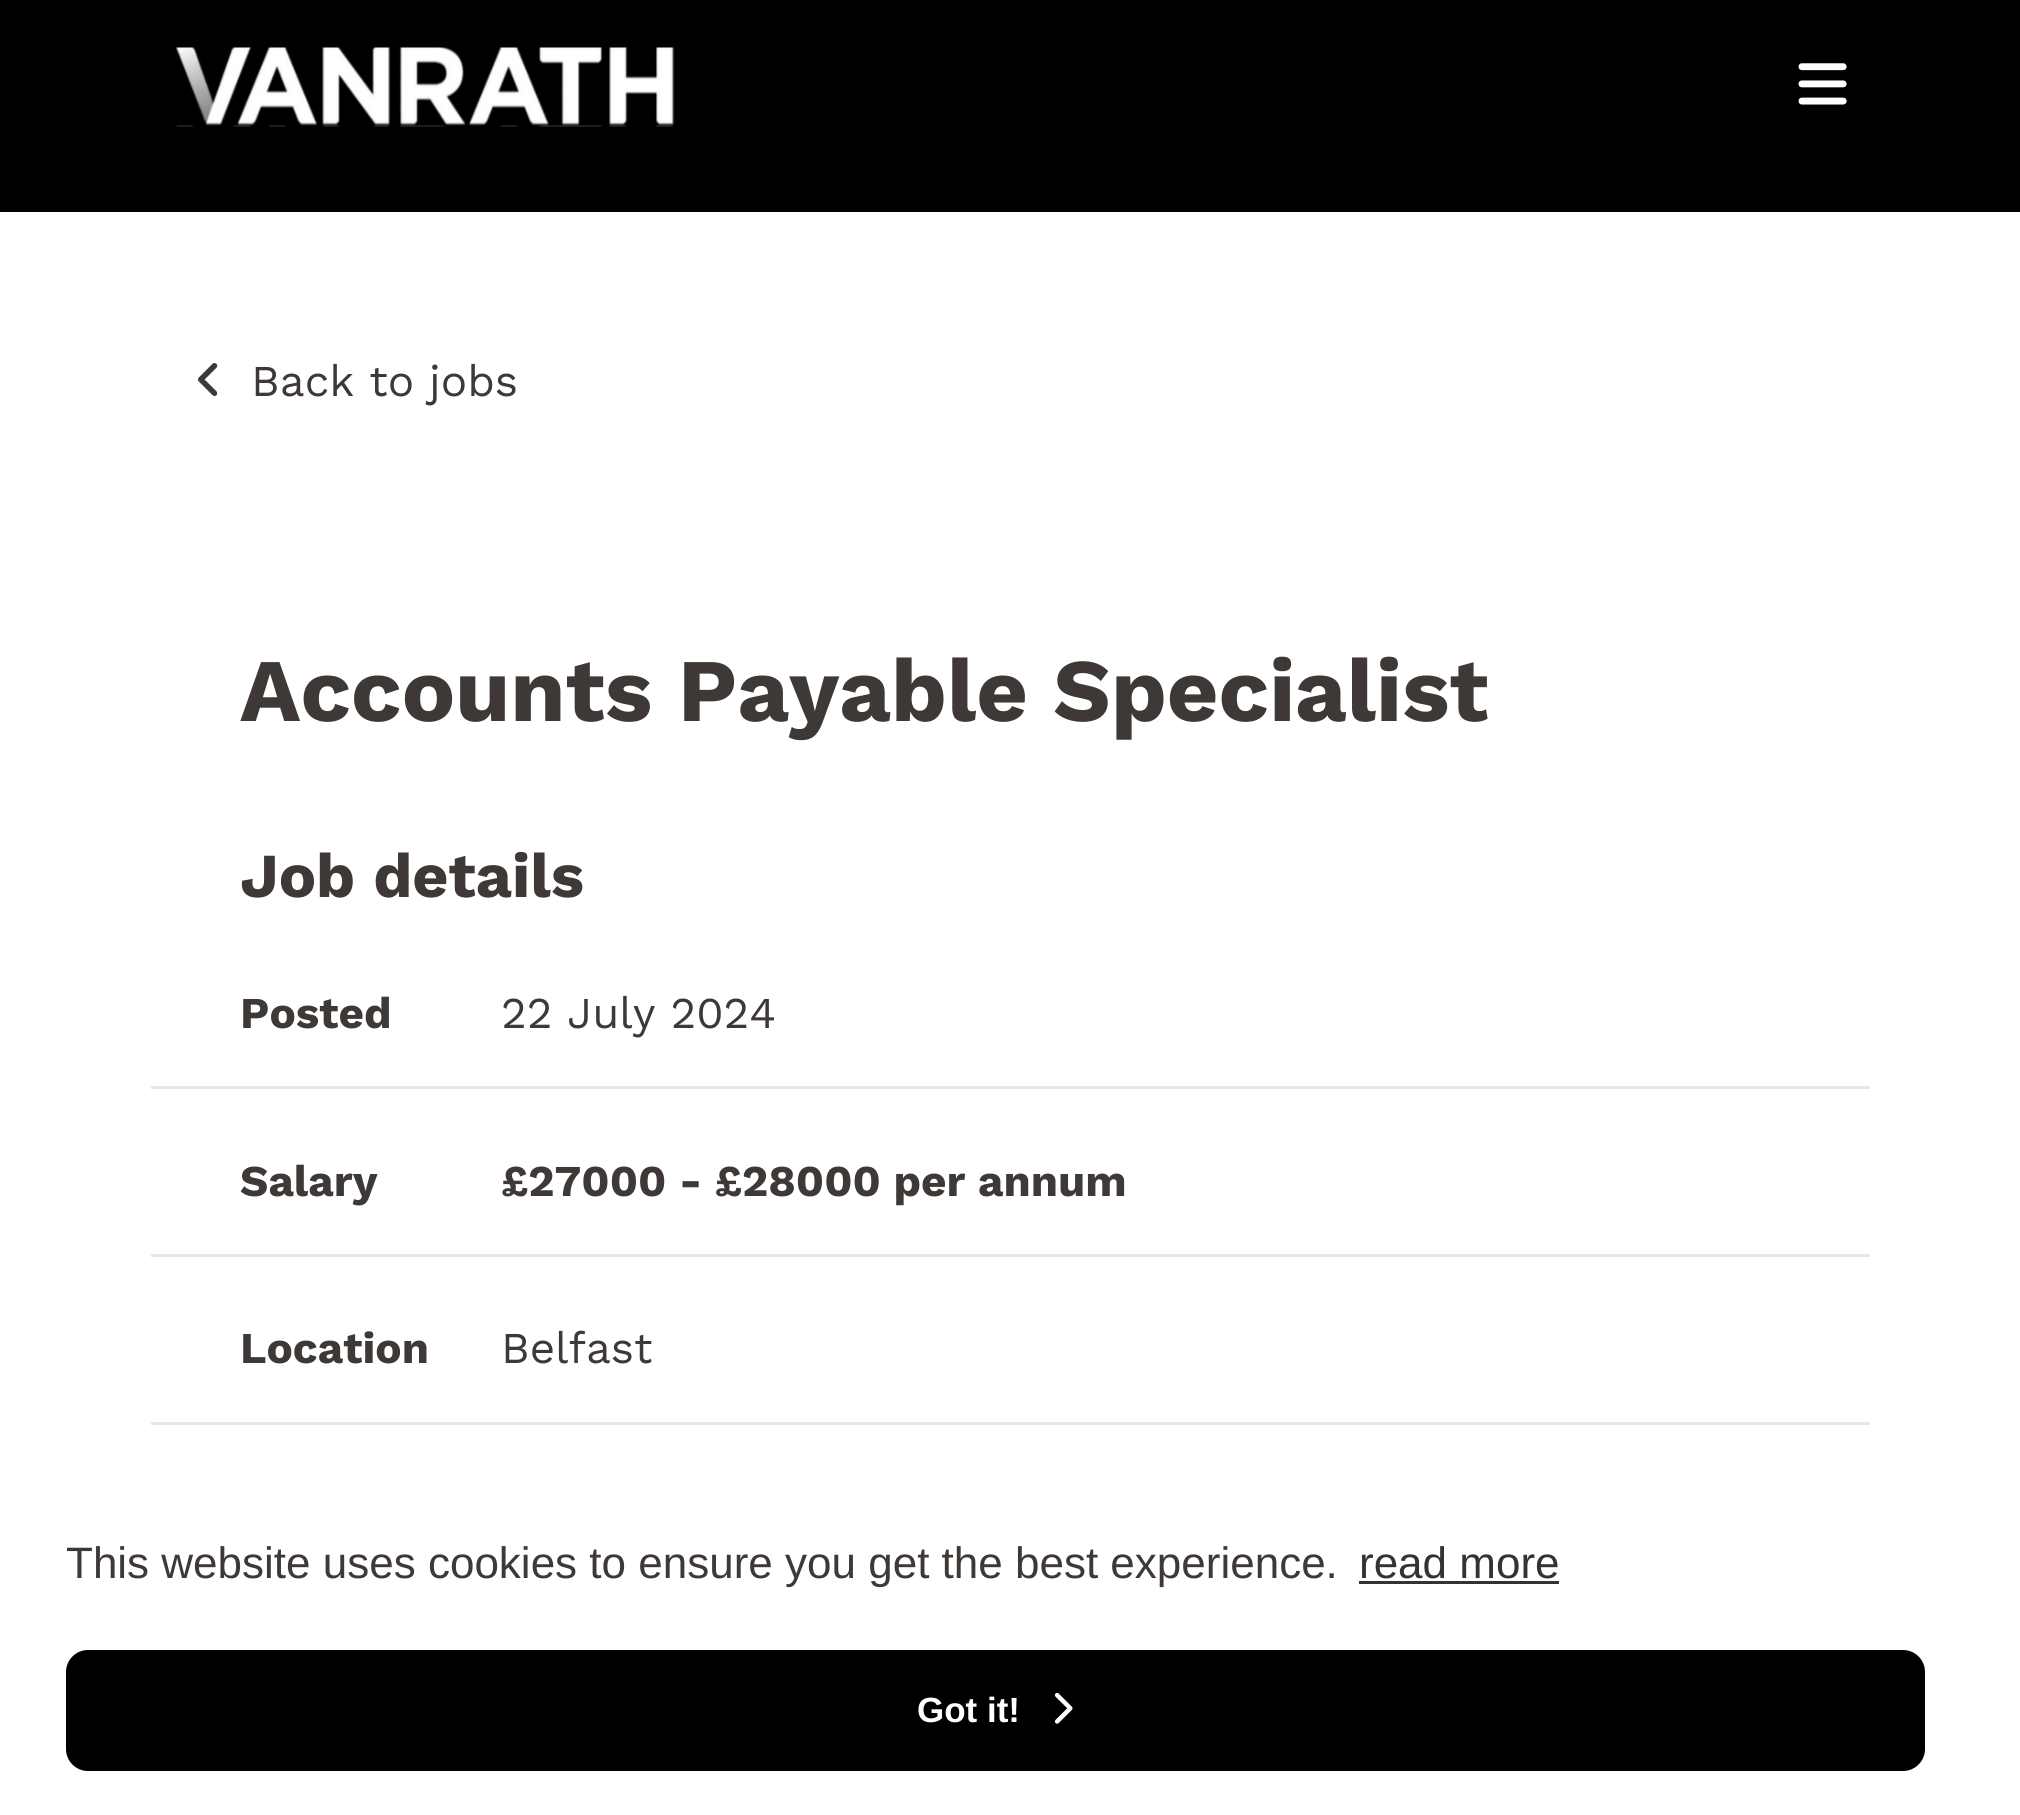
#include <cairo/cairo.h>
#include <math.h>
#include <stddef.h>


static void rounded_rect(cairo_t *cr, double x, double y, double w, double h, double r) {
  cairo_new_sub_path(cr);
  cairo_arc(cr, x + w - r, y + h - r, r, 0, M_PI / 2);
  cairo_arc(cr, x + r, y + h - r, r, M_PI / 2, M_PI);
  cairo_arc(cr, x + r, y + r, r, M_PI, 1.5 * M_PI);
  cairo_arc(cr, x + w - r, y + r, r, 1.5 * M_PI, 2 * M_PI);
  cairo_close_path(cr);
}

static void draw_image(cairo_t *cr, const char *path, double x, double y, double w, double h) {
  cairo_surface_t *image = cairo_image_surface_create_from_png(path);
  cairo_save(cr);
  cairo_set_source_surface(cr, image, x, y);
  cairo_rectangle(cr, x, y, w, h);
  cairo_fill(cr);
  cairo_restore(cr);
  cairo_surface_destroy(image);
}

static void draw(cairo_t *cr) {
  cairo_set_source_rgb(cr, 1, 1, 1);
  cairo_paint(cr);
  cairo_set_source_rgb(cr, 0, 0, 0);
  cairo_rectangle(cr, 0, 0, 2020, 212);
  cairo_fill(cr);
  draw_image(cr, "images/1.png", 175, 47, 500, 80);
  draw_image(cr, "images/2.png", 1798, 63, 49, 42);
  draw_image(cr, "images/3.png", 198, 363, 20, 33);
  cairo_set_source_rgb(cr, 230 / 255.0, 230 / 255.0, 230 / 255.0);
  cairo_rectangle(cr, 151, 1086, 1719, 3);
  cairo_fill(cr);
  cairo_rectangle(cr, 151, 1254, 1719, 3);
  cairo_fill(cr);
  cairo_rectangle(cr, 151, 1422, 1719, 3);
  cairo_fill(cr);
  cairo_set_source_rgb(cr, 51 / 255.0, 51 / 255.0, 51 / 255.0);
  cairo_rectangle(cr, 1359, 1581, 200, 3);
  cairo_fill(cr);
  cairo_set_source_rgb(cr, 0, 0, 0);
  rounded_rect(cr, 66, 1650, 1859, 121, 22);
  cairo_fill(cr);
  draw_image(cr, "images/4.png", 1054, 1692, 19, 32);
  cairo_select_font_face(cr, "Work Sans", CAIRO_FONT_SLANT_NORMAL, CAIRO_FONT_WEIGHT_NORMAL);
  cairo_set_font_size(cr, 44);
  cairo_set_source_rgb(cr, 62 / 255.0, 57 / 255.0, 54 / 255.0);
  cairo_move_to(cr, 251, 396);
  cairo_show_text(cr, "Back to jobs");
  cairo_select_font_face(cr, "Work Sans", CAIRO_FONT_SLANT_NORMAL, CAIRO_FONT_WEIGHT_BOLD);
  cairo_set_font_size(cr, 89.25);
  cairo_move_to(cr, 240, 721);
  cairo_show_text(cr, "Accounts Payable Specialist");
  cairo_set_font_size(cr, 62.5);
  cairo_move_to(cr, 240, 897);
  cairo_show_text(cr, "Job details");
  cairo_set_font_size(cr, 44);
  cairo_move_to(cr, 240, 1028);
  cairo_show_text(cr, "Posted");
  cairo_select_font_face(cr, "Work Sans", CAIRO_FONT_SLANT_NORMAL, CAIRO_FONT_WEIGHT_NORMAL);
  cairo_move_to(cr, 501, 1028);
  cairo_show_text(cr, "22 July 2024");
  cairo_select_font_face(cr, "Work Sans", CAIRO_FONT_SLANT_NORMAL, CAIRO_FONT_WEIGHT_BOLD);
  cairo_move_to(cr, 240, 1196);
  cairo_show_text(cr, "Salary");
  cairo_move_to(cr, 501, 1196);
  cairo_show_text(cr, "£27000 - £28000 per annum");
  cairo_move_to(cr, 240, 1363);
  cairo_show_text(cr, "Location");
  cairo_select_font_face(cr, "Work Sans", CAIRO_FONT_SLANT_NORMAL, CAIRO_FONT_WEIGHT_NORMAL);
  cairo_move_to(cr, 501, 1363);
  cairo_show_text(cr, "Belfast");
  cairo_select_font_face(cr, "Liberation Sans", CAIRO_FONT_SLANT_NORMAL, CAIRO_FONT_WEIGHT_NORMAL);
  cairo_move_to(cr, 66, 1578);
  cairo_show_text(cr, "This website uses cookies to ensure you get the best experience.");
  cairo_set_source_rgb(cr, 51 / 255.0, 51 / 255.0, 51 / 255.0);
  cairo_move_to(cr, 1359, 1578);
  cairo_show_text(cr, "read more");
  cairo_select_font_face(cr, "Liberation Sans", CAIRO_FONT_SLANT_NORMAL, CAIRO_FONT_WEIGHT_BOLD);
  cairo_set_font_size(cr, 35);
  cairo_set_source_rgb(cr, 1, 1, 1);
  cairo_move_to(cr, 917, 1722);
  cairo_show_text(cr, "Got it!");
}

int main(void) {
  cairo_surface_t *surface = cairo_image_surface_create(CAIRO_FORMAT_RGB24, 2020, 1815);
  cairo_t *cr = cairo_create(surface);
  cairo_font_options_t *options = cairo_font_options_create();
  cairo_font_options_set_hint_metrics(options, CAIRO_HINT_METRICS_OFF);
  cairo_font_options_set_hint_style(options, CAIRO_HINT_STYLE_NONE);
  cairo_set_font_options(cr, options);
  cairo_set_miter_limit(cr, 4);
  draw(cr);
  cairo_surface_write_to_png(surface, "out.png");
  cairo_font_options_destroy(options);
  cairo_destroy(cr);
  cairo_surface_destroy(surface);
  return 0;
}
